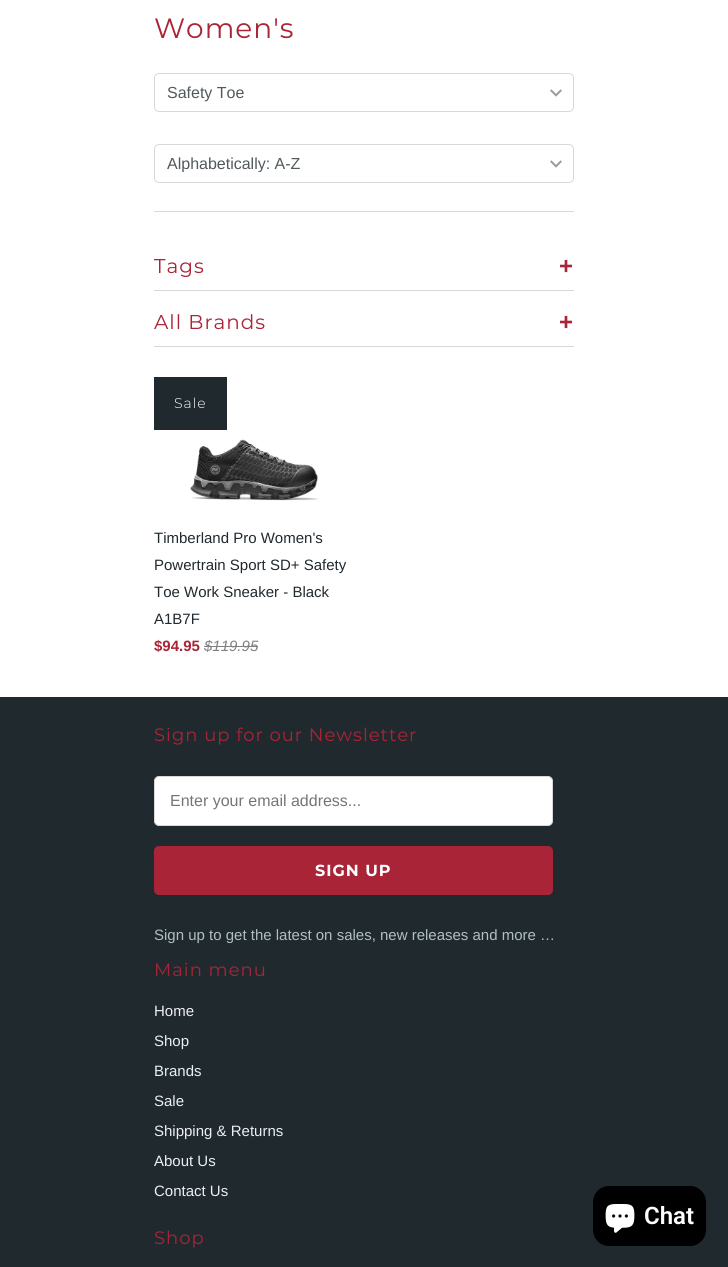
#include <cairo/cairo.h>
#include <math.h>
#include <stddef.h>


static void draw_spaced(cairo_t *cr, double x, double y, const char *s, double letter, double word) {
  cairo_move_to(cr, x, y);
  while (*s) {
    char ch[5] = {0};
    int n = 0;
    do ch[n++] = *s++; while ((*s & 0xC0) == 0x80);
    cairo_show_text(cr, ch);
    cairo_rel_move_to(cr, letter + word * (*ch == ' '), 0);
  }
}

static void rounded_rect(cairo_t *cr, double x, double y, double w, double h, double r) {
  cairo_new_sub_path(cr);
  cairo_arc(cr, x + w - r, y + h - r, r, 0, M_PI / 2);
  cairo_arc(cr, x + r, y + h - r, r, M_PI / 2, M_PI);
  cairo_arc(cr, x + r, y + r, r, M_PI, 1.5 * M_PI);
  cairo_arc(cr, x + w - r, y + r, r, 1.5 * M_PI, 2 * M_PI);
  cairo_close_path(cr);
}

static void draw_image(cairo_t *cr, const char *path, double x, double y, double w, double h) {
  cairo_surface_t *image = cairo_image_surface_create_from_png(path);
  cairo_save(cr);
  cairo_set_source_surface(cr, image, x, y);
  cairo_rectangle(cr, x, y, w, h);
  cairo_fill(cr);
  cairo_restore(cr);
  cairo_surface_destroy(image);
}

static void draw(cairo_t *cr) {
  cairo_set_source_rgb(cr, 1, 1, 1);
  cairo_paint(cr);
  cairo_set_source_rgb(cr, 216 / 255.0, 216 / 255.0, 216 / 255.0);
  cairo_rectangle(cr, 154, 211, 420, 1);
  cairo_fill(cr);
  draw_image(cr, "images/1.png", 550, 89, 12, 8);
  rounded_rect(cr, 154.5, 73.5, 419, 38, 4.5);
  cairo_set_line_width(cr, 1);
  cairo_stroke(cr);
  draw_image(cr, "images/1.png", 550, 160, 12, 8);
  rounded_rect(cr, 154.5, 144.5, 419, 38, 4.5);
  cairo_stroke(cr);
  cairo_rectangle(cr, 154, 290, 420, 1);
  cairo_fill(cr);
  cairo_rectangle(cr, 154, 346, 420, 1);
  cairo_fill(cr);
  cairo_set_source_rgb(cr, 32 / 255.0, 41 / 255.0, 46 / 255.0);
  cairo_rectangle(cr, 154, 377, 73, 53);
  cairo_fill(cr);
  draw_image(cr, "images/2.png", 190, 439, 129, 62);
  cairo_set_source_rgb(cr, 128 / 255.0, 128 / 255.0, 128 / 255.0);
  cairo_rectangle(cr, 204, 646, 54, 1);
  cairo_fill(cr);
  cairo_set_source_rgb(cr, 32 / 255.0, 41 / 255.0, 46 / 255.0);
  cairo_rectangle(cr, 0, 697, 728, 570);
  cairo_fill(cr);
  cairo_set_source_rgb(cr, 1, 1, 1);
  rounded_rect(cr, 154.5, 776.5, 398, 49, 4.5);
  cairo_fill_preserve(cr);
  cairo_set_source_rgb(cr, 216 / 255.0, 216 / 255.0, 216 / 255.0);
  cairo_stroke(cr);
  cairo_set_source_rgb(cr, 169 / 255.0, 36 / 255.0, 54 / 255.0);
  rounded_rect(cr, 154, 846, 399, 49, 5);
  cairo_fill(cr);
  cairo_set_source_rgb(cr, 0, 0, 0);
  rounded_rect(cr, 593, 1186, 113, 60, 16);
  cairo_fill(cr);
  draw_image(cr, "images/3.png", 605, 1204, 30, 29);
  cairo_select_font_face(cr, "Montserrat", CAIRO_FONT_SLANT_NORMAL, CAIRO_FONT_WEIGHT_NORMAL);
  cairo_set_font_size(cr, 28);
  cairo_set_source_rgb(cr, 169 / 255.0, 36 / 255.0, 54 / 255.0);
  draw_spaced(cr, 154, 38, "Women's", 1, 0);
  cairo_select_font_face(cr, "Liberation Sans", CAIRO_FONT_SLANT_NORMAL, CAIRO_FONT_WEIGHT_NORMAL);
  cairo_set_font_size(cr, 16);
  cairo_set_source_rgb(cr, 81 / 255.0, 89 / 255.0, 93 / 255.0);
  cairo_move_to(cr, 167, 98);
  cairo_show_text(cr, "Safety Toe");
  cairo_save(cr);
  cairo_rectangle(cr, 167, 155, 394, 17);
  cairo_clip(cr);
  cairo_move_to(cr, 167, 169);
  cairo_show_text(cr, "Alphabetically: A-Z");
  cairo_restore(cr);
  cairo_select_font_face(cr, "Montserrat", CAIRO_FONT_SLANT_NORMAL, CAIRO_FONT_WEIGHT_NORMAL);
  cairo_set_font_size(cr, 20);
  cairo_set_source_rgb(cr, 169 / 255.0, 36 / 255.0, 54 / 255.0);
  draw_spaced(cr, 154, 273, "Tags", 1, 0);
  cairo_select_font_face(cr, "Liberation Sans", CAIRO_FONT_SLANT_NORMAL, CAIRO_FONT_WEIGHT_BOLD);
  cairo_set_font_size(cr, 24);
  draw_spaced(cr, 559, 274, "+", 1, 0);
  cairo_select_font_face(cr, "Montserrat", CAIRO_FONT_SLANT_NORMAL, CAIRO_FONT_WEIGHT_NORMAL);
  cairo_set_font_size(cr, 20);
  draw_spaced(cr, 154, 329, "All Brands", 1, 0);
  cairo_select_font_face(cr, "Liberation Sans", CAIRO_FONT_SLANT_NORMAL, CAIRO_FONT_WEIGHT_BOLD);
  cairo_set_font_size(cr, 24);
  draw_spaced(cr, 559, 330, "+", 1, 0);
  cairo_select_font_face(cr, "Montserrat Light", CAIRO_FONT_SLANT_NORMAL, CAIRO_FONT_WEIGHT_NORMAL);
  cairo_set_font_size(cr, 14);
  cairo_set_source_rgb(cr, 1, 1, 1);
  draw_spaced(cr, 174, 408, "Sale", 1, 0);
  cairo_select_font_face(cr, "Liberation Sans", CAIRO_FONT_SLANT_NORMAL, CAIRO_FONT_WEIGHT_NORMAL);
  cairo_set_font_size(cr, 15);
  cairo_set_source_rgb(cr, 32 / 255.0, 41 / 255.0, 46 / 255.0);
  cairo_move_to(cr, 154, 543);
  cairo_show_text(cr, "Timberland Pro Women's");
  cairo_move_to(cr, 154, 570);
  cairo_show_text(cr, "Powertrain Sport SD+ Safety");
  cairo_move_to(cr, 154, 597);
  cairo_show_text(cr, "Toe Work Sneaker - Black");
  cairo_move_to(cr, 154, 624);
  cairo_show_text(cr, "A1B7F");
  cairo_select_font_face(cr, "Liberation Sans", CAIRO_FONT_SLANT_NORMAL, CAIRO_FONT_WEIGHT_BOLD);
  cairo_set_source_rgb(cr, 169 / 255.0, 36 / 255.0, 54 / 255.0);
  cairo_move_to(cr, 154, 651);
  cairo_show_text(cr, "$94.95");
  cairo_select_font_face(cr, "Liberation Sans", CAIRO_FONT_SLANT_ITALIC, CAIRO_FONT_WEIGHT_NORMAL);
  cairo_set_source_rgb(cr, 128 / 255.0, 128 / 255.0, 128 / 255.0);
  cairo_move_to(cr, 204, 651);
  cairo_show_text(cr, "$119.95");
  cairo_select_font_face(cr, "Montserrat", CAIRO_FONT_SLANT_NORMAL, CAIRO_FONT_WEIGHT_NORMAL);
  cairo_set_font_size(cr, 18);
  cairo_set_source_rgb(cr, 169 / 255.0, 36 / 255.0, 54 / 255.0);
  draw_spaced(cr, 154, 741, "Sign up for our Newsletter", 1, 0);
  cairo_select_font_face(cr, "Liberation Sans", CAIRO_FONT_SLANT_NORMAL, CAIRO_FONT_WEIGHT_NORMAL);
  cairo_set_font_size(cr, 16);
  cairo_set_source_rgb(cr, 117 / 255.0, 117 / 255.0, 117 / 255.0);
  cairo_move_to(cr, 170, 806);
  cairo_show_text(cr, "Enter your email address...");
  cairo_select_font_face(cr, "Montserrat", CAIRO_FONT_SLANT_NORMAL, CAIRO_FONT_WEIGHT_BOLD);
  cairo_set_source_rgb(cr, 1, 1, 1);
  draw_spaced(cr, 315, 876, "SIGN UP", 1, 0);
  cairo_select_font_face(cr, "Liberation Sans", CAIRO_FONT_SLANT_NORMAL, CAIRO_FONT_WEIGHT_NORMAL);
  cairo_set_font_size(cr, 15);
  cairo_set_source_rgb(cr, 176 / 255.0, 190 / 255.0, 197 / 255.0);
  cairo_move_to(cr, 154, 940);
  cairo_show_text(cr, "Sign up to get the latest on sales, new releases and more …");
  cairo_select_font_face(cr, "Montserrat", CAIRO_FONT_SLANT_NORMAL, CAIRO_FONT_WEIGHT_NORMAL);
  cairo_set_font_size(cr, 18);
  cairo_set_source_rgb(cr, 169 / 255.0, 36 / 255.0, 54 / 255.0);
  draw_spaced(cr, 154, 976, "Main menu", 1, 0);
  cairo_select_font_face(cr, "Liberation Sans", CAIRO_FONT_SLANT_NORMAL, CAIRO_FONT_WEIGHT_NORMAL);
  cairo_set_font_size(cr, 15);
  cairo_set_source_rgb(cr, 236 / 255.0, 239 / 255.0, 241 / 255.0);
  cairo_move_to(cr, 154, 1016);
  cairo_show_text(cr, "Home");
  cairo_move_to(cr, 154, 1046);
  cairo_show_text(cr, "Shop");
  cairo_move_to(cr, 154, 1076);
  cairo_show_text(cr, "Brands");
  cairo_move_to(cr, 154, 1106);
  cairo_show_text(cr, "Sale");
  cairo_move_to(cr, 154, 1136);
  cairo_show_text(cr, "Shipping & Returns");
  cairo_move_to(cr, 154, 1166);
  cairo_show_text(cr, "About Us");
  cairo_move_to(cr, 154, 1196);
  cairo_show_text(cr, "Contact Us");
  cairo_select_font_face(cr, "Montserrat", CAIRO_FONT_SLANT_NORMAL, CAIRO_FONT_WEIGHT_NORMAL);
  cairo_set_font_size(cr, 18);
  cairo_set_source_rgb(cr, 169 / 255.0, 36 / 255.0, 54 / 255.0);
  draw_spaced(cr, 154, 1244, "Shop", 1, 0);
  cairo_select_font_face(cr, "Roboto SemiBold", CAIRO_FONT_SLANT_NORMAL, CAIRO_FONT_WEIGHT_NORMAL);
  cairo_set_font_size(cr, 24);
  cairo_set_source_rgb(cr, 1, 1, 1);
  cairo_move_to(cr, 644, 1224);
  cairo_show_text(cr, "Chat");
}

int main(void) {
  cairo_surface_t *surface = cairo_image_surface_create(CAIRO_FORMAT_RGB24, 728, 1267);
  cairo_t *cr = cairo_create(surface);
  cairo_font_options_t *options = cairo_font_options_create();
  cairo_font_options_set_hint_metrics(options, CAIRO_HINT_METRICS_OFF);
  cairo_font_options_set_hint_style(options, CAIRO_HINT_STYLE_NONE);
  cairo_set_font_options(cr, options);
  cairo_set_miter_limit(cr, 4);
  draw(cr);
  cairo_surface_write_to_png(surface, "out.png");
  cairo_font_options_destroy(options);
  cairo_destroy(cr);
  cairo_surface_destroy(surface);
  return 0;
}
